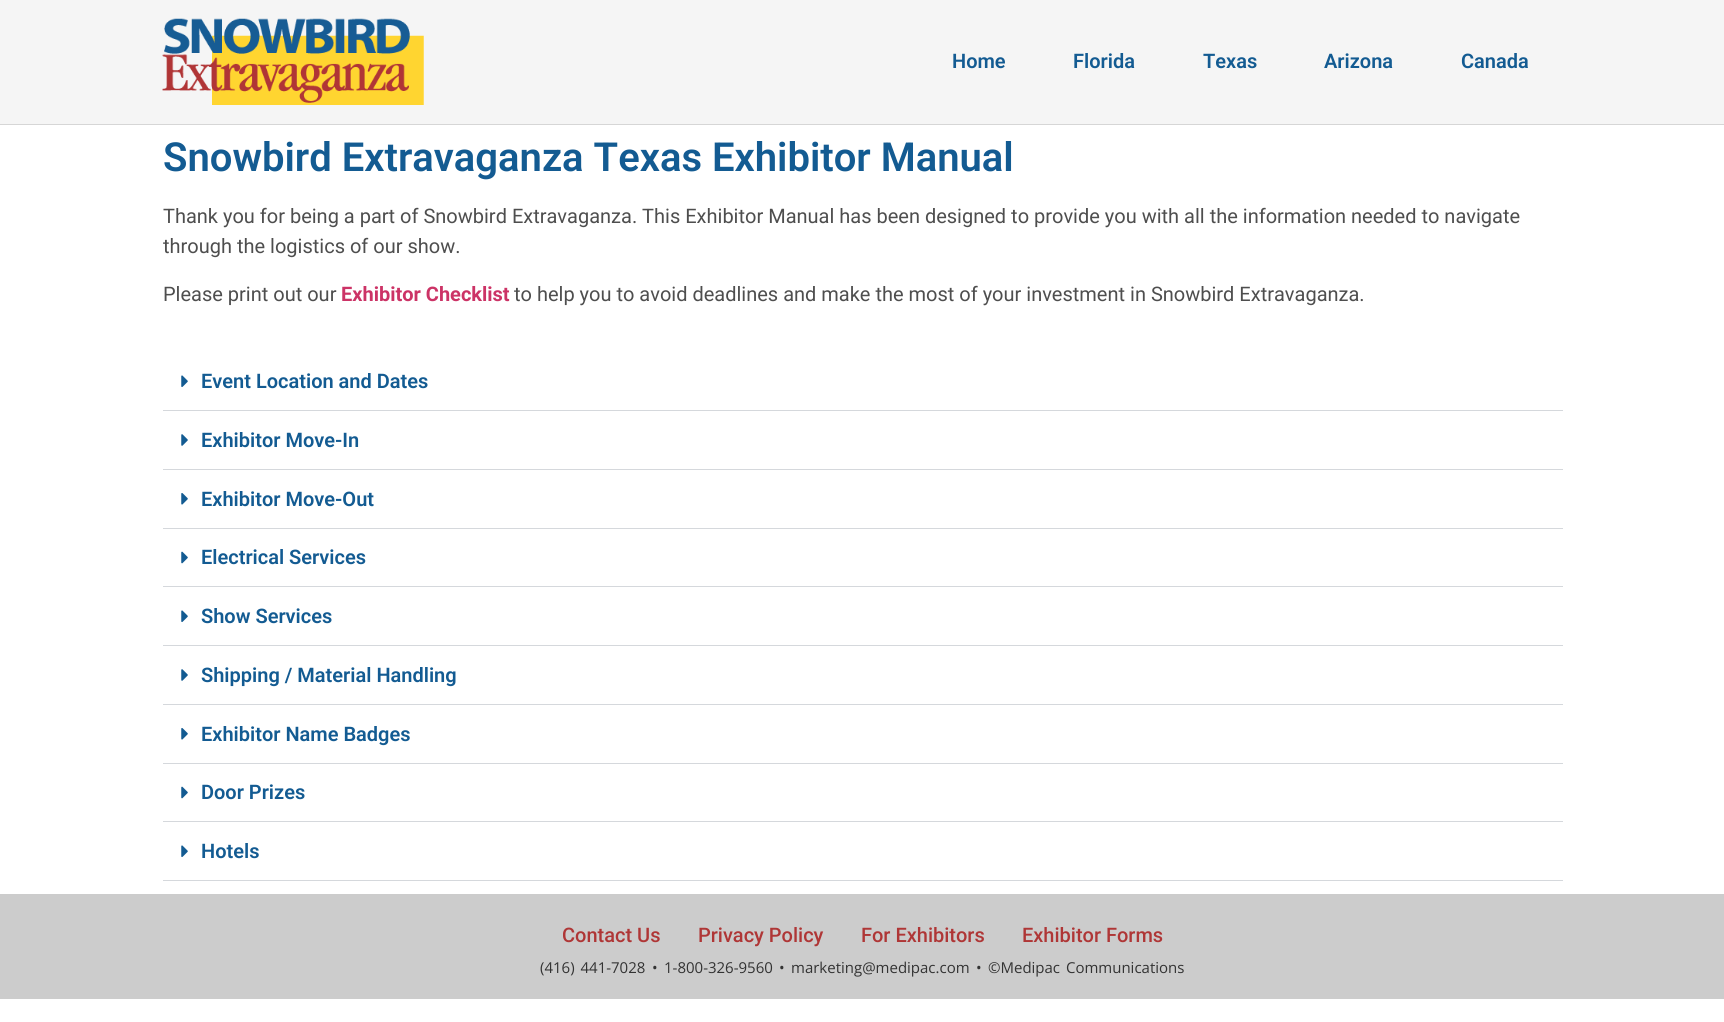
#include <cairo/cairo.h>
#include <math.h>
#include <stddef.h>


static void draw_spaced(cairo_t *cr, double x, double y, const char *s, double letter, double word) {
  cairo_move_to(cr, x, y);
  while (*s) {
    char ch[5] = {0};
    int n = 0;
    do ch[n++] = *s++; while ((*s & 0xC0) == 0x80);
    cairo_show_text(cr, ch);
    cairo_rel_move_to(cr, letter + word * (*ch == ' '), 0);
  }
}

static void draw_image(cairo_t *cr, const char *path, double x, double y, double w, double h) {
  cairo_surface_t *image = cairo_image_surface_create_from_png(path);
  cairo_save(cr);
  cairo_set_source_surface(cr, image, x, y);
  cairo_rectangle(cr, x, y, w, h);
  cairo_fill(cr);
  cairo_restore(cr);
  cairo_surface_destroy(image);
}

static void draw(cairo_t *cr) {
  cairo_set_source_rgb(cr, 1, 1, 1);
  cairo_paint(cr);
  cairo_set_source_rgb(cr, 245 / 255.0, 245 / 255.0, 245 / 255.0);
  cairo_rectangle(cr, 0, 0, 1724, 124);
  cairo_fill(cr);
  cairo_set_source_rgb(cr, 214 / 255.0, 214 / 255.0, 214 / 255.0);
  cairo_rectangle(cr, 0, 124, 1724, 1);
  cairo_fill(cr);
  draw_image(cr, "images/1.png", 162, 18, 262, 87);
  cairo_set_source_rgb(cr, 213 / 255.0, 216 / 255.0, 220 / 255.0);
  cairo_rectangle(cr, 163, 410, 1400, 1);
  cairo_fill(cr);
  draw_image(cr, "images/2.png", 181, 375, 7, 12);
  cairo_rectangle(cr, 163, 469, 1400, 1);
  cairo_fill(cr);
  draw_image(cr, "images/3.png", 181, 434, 7, 12);
  cairo_rectangle(cr, 163, 528, 1400, 1);
  cairo_fill(cr);
  draw_image(cr, "images/4.png", 181, 493, 7, 12);
  cairo_rectangle(cr, 163, 586, 1400, 1);
  cairo_fill(cr);
  draw_image(cr, "images/5.png", 181, 551, 7, 13);
  cairo_rectangle(cr, 163, 645, 1400, 1);
  cairo_fill(cr);
  draw_image(cr, "images/2.png", 181, 610, 7, 12);
  cairo_rectangle(cr, 163, 704, 1400, 1);
  cairo_fill(cr);
  draw_image(cr, "images/3.png", 181, 669, 7, 12);
  cairo_rectangle(cr, 163, 763, 1400, 1);
  cairo_fill(cr);
  draw_image(cr, "images/4.png", 181, 728, 7, 12);
  cairo_rectangle(cr, 163, 821, 1400, 1);
  cairo_fill(cr);
  draw_image(cr, "images/5.png", 181, 786, 7, 13);
  cairo_rectangle(cr, 163, 880, 1400, 1);
  cairo_fill(cr);
  draw_image(cr, "images/2.png", 181, 845, 7, 12);
  cairo_set_source_rgb(cr, 204 / 255.0, 204 / 255.0, 204 / 255.0);
  cairo_rectangle(cr, 0, 894, 1724, 105);
  cairo_fill(cr);
  cairo_select_font_face(cr, "Roboto SemiBold", CAIRO_FONT_SLANT_NORMAL, CAIRO_FONT_WEIGHT_NORMAL);
  cairo_set_font_size(cr, 20);
  cairo_set_source_rgb(cr, 19 / 255.0, 91 / 255.0, 146 / 255.0);
  cairo_move_to(cr, 952, 68);
  cairo_show_text(cr, "Home");
  cairo_move_to(cr, 1073, 68);
  cairo_show_text(cr, "Florida");
  cairo_move_to(cr, 1203, 68);
  cairo_show_text(cr, "Texas");
  cairo_move_to(cr, 1324, 68);
  cairo_show_text(cr, "Arizona");
  cairo_move_to(cr, 1461, 68);
  cairo_show_text(cr, "Canada");
  cairo_set_font_size(cr, 40);
  cairo_move_to(cr, 163, 171);
  cairo_show_text(cr, "Snowbird Extravaganza Texas Exhibitor Manual");
  cairo_select_font_face(cr, "Roboto", CAIRO_FONT_SLANT_NORMAL, CAIRO_FONT_WEIGHT_NORMAL);
  cairo_set_font_size(cr, 20);
  cairo_set_source_rgb(cr, 78 / 255.0, 78 / 255.0, 78 / 255.0);
  cairo_move_to(cr, 163, 223);
  cairo_show_text(cr, "Thank you for being a part of Snowbird Extravaganza. This Exhibitor Manual has been designed to provide you with all the information needed to navigate");
  cairo_move_to(cr, 163, 253);
  cairo_show_text(cr, "through the logistics of our show.");
  cairo_move_to(cr, 163, 301);
  cairo_show_text(cr, "Please print out our");
  cairo_select_font_face(cr, "Roboto", CAIRO_FONT_SLANT_NORMAL, CAIRO_FONT_WEIGHT_BOLD);
  cairo_set_source_rgb(cr, 204 / 255.0, 51 / 255.0, 102 / 255.0);
  cairo_move_to(cr, 341, 301);
  cairo_show_text(cr, "Exhibitor Checklist");
  cairo_select_font_face(cr, "Roboto", CAIRO_FONT_SLANT_NORMAL, CAIRO_FONT_WEIGHT_NORMAL);
  cairo_set_source_rgb(cr, 78 / 255.0, 78 / 255.0, 78 / 255.0);
  cairo_move_to(cr, 514, 301);
  cairo_show_text(cr, "to help you to avoid deadlines and make the most of your investment in Snowbird Extravaganza.");
  cairo_select_font_face(cr, "Roboto SemiBold", CAIRO_FONT_SLANT_NORMAL, CAIRO_FONT_WEIGHT_NORMAL);
  cairo_set_source_rgb(cr, 19 / 255.0, 91 / 255.0, 146 / 255.0);
  cairo_move_to(cr, 201, 388);
  cairo_show_text(cr, "Event Location and Dates");
  cairo_move_to(cr, 201, 447);
  cairo_show_text(cr, "Exhibitor Move-In");
  cairo_move_to(cr, 201, 506);
  cairo_show_text(cr, "Exhibitor Move-Out");
  cairo_move_to(cr, 201, 564);
  cairo_show_text(cr, "Electrical Services");
  cairo_move_to(cr, 201, 623);
  cairo_show_text(cr, "Show Services");
  cairo_move_to(cr, 201, 682);
  cairo_show_text(cr, "Shipping / Material Handling");
  cairo_move_to(cr, 201, 741);
  cairo_show_text(cr, "Exhibitor Name Badges");
  cairo_move_to(cr, 201, 799);
  cairo_show_text(cr, "Door Prizes");
  cairo_move_to(cr, 201, 858);
  cairo_show_text(cr, "Hotels");
  cairo_select_font_face(cr, "Roboto Medium", CAIRO_FONT_SLANT_NORMAL, CAIRO_FONT_WEIGHT_NORMAL);
  cairo_set_source_rgb(cr, 175 / 255.0, 54 / 255.0, 54 / 255.0);
  cairo_move_to(cr, 562, 942);
  cairo_show_text(cr, "Contact Us");
  cairo_move_to(cr, 698, 942);
  cairo_show_text(cr, "Privacy Policy");
  cairo_move_to(cr, 861, 942);
  cairo_show_text(cr, "For Exhibitors");
  cairo_move_to(cr, 1022, 942);
  cairo_show_text(cr, "Exhibitor Forms");
  cairo_select_font_face(cr, "Open Sans", CAIRO_FONT_SLANT_NORMAL, CAIRO_FONT_WEIGHT_NORMAL);
  cairo_set_font_size(cr, 15);
  cairo_set_source_rgb(cr, 51 / 255.0, 51 / 255.0, 51 / 255.0);
  draw_spaced(cr, 540, 973, "(416) 441-7028", 0, 2);
  cairo_move_to(cr, 652, 973);
  cairo_show_text(cr, "•");
  cairo_move_to(cr, 664, 973);
  cairo_show_text(cr, "1-800-326-9560");
  cairo_move_to(cr, 779, 973);
  cairo_show_text(cr, "•");
  cairo_move_to(cr, 791, 973);
  cairo_show_text(cr, "marketing@medipac.com");
  cairo_move_to(cr, 976, 973);
  cairo_show_text(cr, "•");
  draw_spaced(cr, 988, 973, "©Medipac Communications", 0, 2);
}

int main(void) {
  cairo_surface_t *surface = cairo_image_surface_create(CAIRO_FORMAT_RGB24, 1724, 1022);
  cairo_t *cr = cairo_create(surface);
  cairo_font_options_t *options = cairo_font_options_create();
  cairo_font_options_set_hint_metrics(options, CAIRO_HINT_METRICS_OFF);
  cairo_font_options_set_hint_style(options, CAIRO_HINT_STYLE_NONE);
  cairo_set_font_options(cr, options);
  cairo_set_miter_limit(cr, 4);
  draw(cr);
  cairo_surface_write_to_png(surface, "out.png");
  cairo_font_options_destroy(options);
  cairo_destroy(cr);
  cairo_surface_destroy(surface);
  return 0;
}
